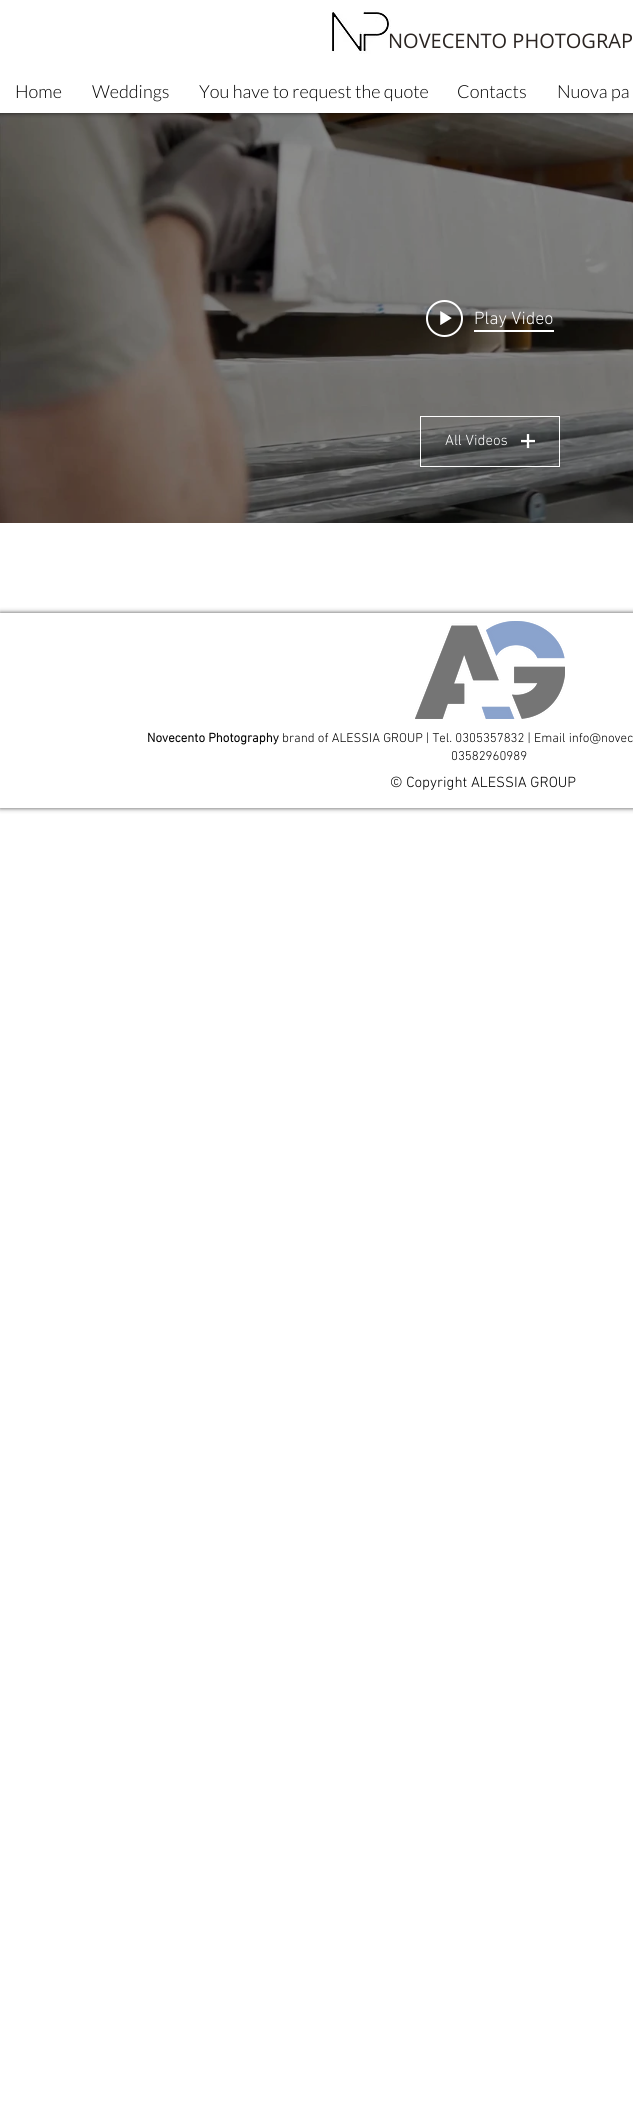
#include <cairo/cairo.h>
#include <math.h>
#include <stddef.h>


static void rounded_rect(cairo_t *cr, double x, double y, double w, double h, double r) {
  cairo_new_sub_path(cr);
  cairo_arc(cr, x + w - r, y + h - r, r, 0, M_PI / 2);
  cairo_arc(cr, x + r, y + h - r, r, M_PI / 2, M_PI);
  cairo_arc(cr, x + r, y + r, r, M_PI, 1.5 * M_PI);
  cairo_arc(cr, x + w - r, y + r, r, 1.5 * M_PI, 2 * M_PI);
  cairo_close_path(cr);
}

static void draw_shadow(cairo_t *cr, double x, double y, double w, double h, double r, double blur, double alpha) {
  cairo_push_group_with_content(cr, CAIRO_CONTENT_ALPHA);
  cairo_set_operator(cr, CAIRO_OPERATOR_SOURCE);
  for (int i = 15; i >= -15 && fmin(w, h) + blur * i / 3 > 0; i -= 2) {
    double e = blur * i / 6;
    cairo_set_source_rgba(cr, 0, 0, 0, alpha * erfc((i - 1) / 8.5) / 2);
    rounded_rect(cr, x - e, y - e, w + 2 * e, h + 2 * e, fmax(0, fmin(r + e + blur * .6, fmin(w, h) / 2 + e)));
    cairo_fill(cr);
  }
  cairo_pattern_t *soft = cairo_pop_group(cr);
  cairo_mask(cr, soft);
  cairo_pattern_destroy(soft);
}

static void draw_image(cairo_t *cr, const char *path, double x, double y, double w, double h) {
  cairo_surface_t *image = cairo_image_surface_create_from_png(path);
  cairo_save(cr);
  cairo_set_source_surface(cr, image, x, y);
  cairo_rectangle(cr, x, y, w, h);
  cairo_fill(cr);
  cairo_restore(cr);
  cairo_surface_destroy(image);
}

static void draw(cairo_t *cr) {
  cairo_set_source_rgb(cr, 1, 1, 1);
  cairo_paint(cr);
  draw_image(cr, "images/2.png", 0, 113, 134, 410);
  draw_image(cr, "images/3.png", 134, 113, 499, 410);
  cairo_save(cr);
  cairo_rectangle(cr, 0, 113, 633, 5);
  cairo_clip(cr);
  cairo_set_source_rgb(cr, 0, 0, 0);
  draw_shadow(cr, 0, 0, 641, 113, 0, 2.5, 0.7);
  cairo_restore(cr);
  draw_image(cr, "images/1.png", 331, 10, 60, 44);
  cairo_arc(cr, 444.5, 318.5, 17.5, 0, 2 * M_PI);
  cairo_set_source_rgb(cr, 1, 1, 1);
  cairo_stroke(cr);
  draw_image(cr, "images/4.png", 440, 311, 12, 14);
  cairo_rectangle(cr, 474, 330, 80, 2);
  cairo_fill(cr);
  cairo_rectangle(cr, 420.5, 416.5, 139, 50);
  cairo_set_line_width(cr, 1);
  cairo_stroke(cr);
  draw_image(cr, "images/5.png", 521, 434, 14, 15);
  cairo_save(cr);
  cairo_set_fill_rule(cr, CAIRO_FILL_RULE_EVEN_ODD);
  cairo_new_path(cr);
  cairo_move_to(cr, 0, 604);
  cairo_line_to(cr, 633, 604);
  cairo_line_to(cr, 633, 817);
  cairo_line_to(cr, 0, 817);
  cairo_close_path(cr);
  cairo_move_to(cr, 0, 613);
  cairo_line_to(cr, 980, 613);
  cairo_line_to(cr, 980, 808);
  cairo_line_to(cr, 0, 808);
  cairo_close_path(cr);
  cairo_clip(cr);
  cairo_set_source_rgb(cr, 0, 0, 0);
  draw_shadow(cr, 0, 613, 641, 195, 0, 2.5, 0.7);
  cairo_restore(cr);
  draw_image(cr, "images/6.png", 415, 621, 150, 98);
  cairo_select_font_face(cr, "Open Sans", CAIRO_FONT_SLANT_NORMAL, CAIRO_FONT_WEIGHT_NORMAL);
  cairo_set_font_size(cr, 20);
  cairo_set_source_rgb(cr, 42 / 255.0, 36 / 255.0, 33 / 255.0);
  cairo_move_to(cr, 388, 48);
  cairo_show_text(cr, "NOVECENTO PHOTOGRAP");
  cairo_select_font_face(cr, "Lato Light", CAIRO_FONT_SLANT_NORMAL, CAIRO_FONT_WEIGHT_NORMAL);
  cairo_set_font_size(cr, 18);
  cairo_set_source_rgb(cr, 0, 0, 0);
  cairo_move_to(cr, 15, 98);
  cairo_show_text(cr, "Home");
  cairo_move_to(cr, 92, 98);
  cairo_show_text(cr, "Weddings");
  cairo_move_to(cr, 199, 98);
  cairo_show_text(cr, "You have to request the quote");
  cairo_move_to(cr, 457, 98);
  cairo_show_text(cr, "Contacts");
  cairo_move_to(cr, 557, 98);
  cairo_show_text(cr, "Nuova pa");
  cairo_select_font_face(cr, "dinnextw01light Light", CAIRO_FONT_SLANT_NORMAL, CAIRO_FONT_WEIGHT_NORMAL);
  cairo_set_source_rgb(cr, 1, 1, 1);
  cairo_move_to(cr, 474, 324);
  cairo_show_text(cr, "Play Video");
  cairo_set_font_size(cr, 15);
  cairo_move_to(cr, 445, 445);
  cairo_show_text(cr, "All Videos");
  cairo_select_font_face(cr, "dinnextw01light", CAIRO_FONT_SLANT_NORMAL, CAIRO_FONT_WEIGHT_BOLD);
  cairo_set_font_size(cr, 13);
  cairo_set_source_rgb(cr, 0, 0, 0);
  cairo_move_to(cr, 147, 742);
  cairo_show_text(cr, "Novecento Photography");
  cairo_select_font_face(cr, "dinnextw01light Light", CAIRO_FONT_SLANT_NORMAL, CAIRO_FONT_WEIGHT_NORMAL);
  cairo_move_to(cr, 282, 742);
  cairo_show_text(cr, "brand of ALESSIA GROUP | Tel. 0305357832 | Email info@novec");
  cairo_move_to(cr, 451, 760);
  cairo_show_text(cr, "03582960989");
  cairo_set_font_size(cr, 15);
  cairo_move_to(cr, 390, 787);
  cairo_show_text(cr, "© Copyright ALESSIA GROUP");
}

int main(void) {
  cairo_surface_t *surface = cairo_image_surface_create(CAIRO_FORMAT_RGB24, 633, 2106);
  cairo_t *cr = cairo_create(surface);
  cairo_font_options_t *options = cairo_font_options_create();
  cairo_font_options_set_hint_metrics(options, CAIRO_HINT_METRICS_OFF);
  cairo_font_options_set_hint_style(options, CAIRO_HINT_STYLE_NONE);
  cairo_set_font_options(cr, options);
  cairo_set_miter_limit(cr, 4);
  draw(cr);
  cairo_surface_write_to_png(surface, "out.png");
  cairo_font_options_destroy(options);
  cairo_destroy(cr);
  cairo_surface_destroy(surface);
  return 0;
}
